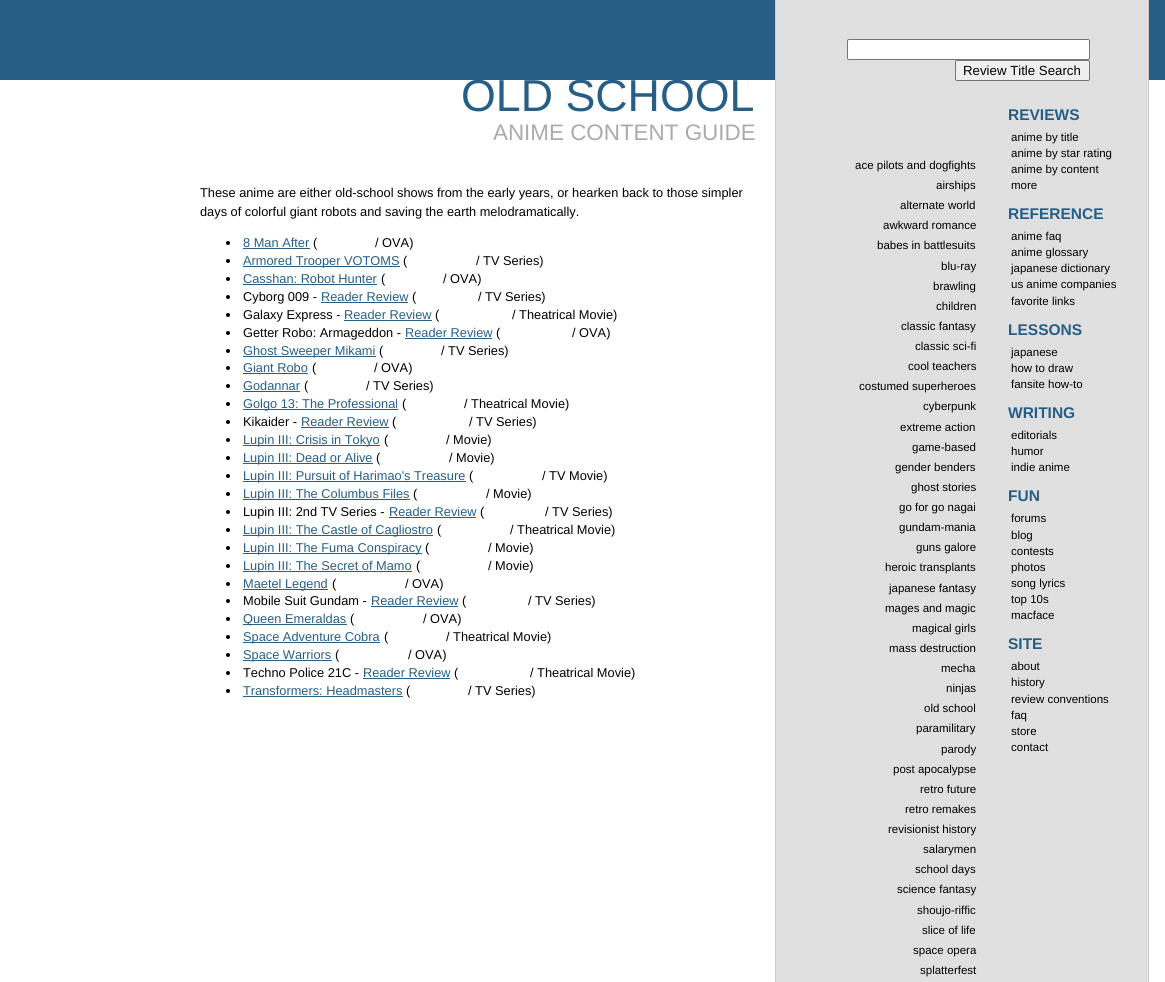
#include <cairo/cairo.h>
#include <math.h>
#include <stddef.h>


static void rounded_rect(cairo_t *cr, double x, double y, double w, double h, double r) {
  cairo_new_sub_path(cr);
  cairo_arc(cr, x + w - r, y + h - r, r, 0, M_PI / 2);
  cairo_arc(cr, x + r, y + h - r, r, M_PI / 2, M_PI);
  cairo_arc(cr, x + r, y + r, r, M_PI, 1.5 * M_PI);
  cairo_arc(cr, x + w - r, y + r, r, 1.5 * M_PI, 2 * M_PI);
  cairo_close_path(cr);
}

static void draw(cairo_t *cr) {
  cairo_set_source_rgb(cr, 1, 1, 1);
  cairo_paint(cr);
  cairo_set_source_rgb(cr, 38 / 255.0, 94 / 255.0, 135 / 255.0);
  cairo_rectangle(cr, 0, 0, 1165, 80);
  cairo_fill(cr);
  cairo_set_source_rgb(cr, 0, 0, 0);
  cairo_arc(cr, 228, 243, 2, 0, 2 * M_PI);
  cairo_fill(cr);
  cairo_set_source_rgb(cr, 38 / 255.0, 94 / 255.0, 135 / 255.0);
  cairo_rectangle(cr, 243, 248, 67, 1);
  cairo_fill(cr);
  cairo_set_source_rgb(cr, 0, 0, 0);
  cairo_arc(cr, 228, 261, 2, 0, 2 * M_PI);
  cairo_fill(cr);
  cairo_set_source_rgb(cr, 38 / 255.0, 94 / 255.0, 135 / 255.0);
  cairo_rectangle(cr, 243, 266, 157, 1);
  cairo_fill(cr);
  cairo_set_source_rgb(cr, 0, 0, 0);
  cairo_arc(cr, 228, 279, 2, 0, 2 * M_PI);
  cairo_fill(cr);
  cairo_set_source_rgb(cr, 38 / 255.0, 94 / 255.0, 135 / 255.0);
  cairo_rectangle(cr, 243, 284, 134, 1);
  cairo_fill(cr);
  cairo_set_source_rgb(cr, 0, 0, 0);
  cairo_arc(cr, 228, 297, 2, 0, 2 * M_PI);
  cairo_fill(cr);
  cairo_set_source_rgb(cr, 38 / 255.0, 94 / 255.0, 135 / 255.0);
  cairo_rectangle(cr, 321, 302, 87, 1);
  cairo_fill(cr);
  cairo_set_source_rgb(cr, 0, 0, 0);
  cairo_arc(cr, 228, 315, 2, 0, 2 * M_PI);
  cairo_fill(cr);
  cairo_set_source_rgb(cr, 38 / 255.0, 94 / 255.0, 135 / 255.0);
  cairo_rectangle(cr, 344, 320, 88, 1);
  cairo_fill(cr);
  cairo_set_source_rgb(cr, 0, 0, 0);
  cairo_arc(cr, 228, 333, 2, 0, 2 * M_PI);
  cairo_fill(cr);
  cairo_set_source_rgb(cr, 38 / 255.0, 94 / 255.0, 135 / 255.0);
  cairo_rectangle(cr, 405, 338, 87, 1);
  cairo_fill(cr);
  cairo_set_source_rgb(cr, 0, 0, 0);
  cairo_arc(cr, 228, 351, 2, 0, 2 * M_PI);
  cairo_fill(cr);
  cairo_set_source_rgb(cr, 38 / 255.0, 94 / 255.0, 135 / 255.0);
  cairo_rectangle(cr, 243, 356, 133, 1);
  cairo_fill(cr);
  cairo_set_source_rgb(cr, 0, 0, 0);
  cairo_arc(cr, 228, 368, 2, 0, 2 * M_PI);
  cairo_fill(cr);
  cairo_set_source_rgb(cr, 38 / 255.0, 94 / 255.0, 135 / 255.0);
  cairo_rectangle(cr, 243, 373, 65, 1);
  cairo_fill(cr);
  cairo_set_source_rgb(cr, 0, 0, 0);
  cairo_arc(cr, 228, 386, 2, 0, 2 * M_PI);
  cairo_fill(cr);
  cairo_set_source_rgb(cr, 38 / 255.0, 94 / 255.0, 135 / 255.0);
  cairo_rectangle(cr, 243, 391, 57, 1);
  cairo_fill(cr);
  cairo_set_source_rgb(cr, 0, 0, 0);
  cairo_arc(cr, 228, 404, 2, 0, 2 * M_PI);
  cairo_fill(cr);
  cairo_set_source_rgb(cr, 38 / 255.0, 94 / 255.0, 135 / 255.0);
  cairo_rectangle(cr, 243, 409, 155, 1);
  cairo_fill(cr);
  cairo_set_source_rgb(cr, 0, 0, 0);
  cairo_arc(cr, 228, 422, 2, 0, 2 * M_PI);
  cairo_fill(cr);
  cairo_set_source_rgb(cr, 38 / 255.0, 94 / 255.0, 135 / 255.0);
  cairo_rectangle(cr, 301, 427, 88, 1);
  cairo_fill(cr);
  cairo_set_source_rgb(cr, 0, 0, 0);
  cairo_arc(cr, 228, 440, 2, 0, 2 * M_PI);
  cairo_fill(cr);
  cairo_set_source_rgb(cr, 38 / 255.0, 94 / 255.0, 135 / 255.0);
  cairo_rectangle(cr, 243, 445, 137, 1);
  cairo_fill(cr);
  cairo_set_source_rgb(cr, 0, 0, 0);
  cairo_arc(cr, 228, 458, 2, 0, 2 * M_PI);
  cairo_fill(cr);
  cairo_set_source_rgb(cr, 38 / 255.0, 94 / 255.0, 135 / 255.0);
  cairo_rectangle(cr, 243, 463, 130, 1);
  cairo_fill(cr);
  cairo_set_source_rgb(cr, 0, 0, 0);
  cairo_arc(cr, 228, 476, 2, 0, 2 * M_PI);
  cairo_fill(cr);
  cairo_set_source_rgb(cr, 38 / 255.0, 94 / 255.0, 135 / 255.0);
  cairo_rectangle(cr, 243, 481, 223, 1);
  cairo_fill(cr);
  cairo_set_source_rgb(cr, 0, 0, 0);
  cairo_arc(cr, 228, 494, 2, 0, 2 * M_PI);
  cairo_fill(cr);
  cairo_set_source_rgb(cr, 38 / 255.0, 94 / 255.0, 135 / 255.0);
  cairo_rectangle(cr, 243, 499, 167, 1);
  cairo_fill(cr);
  cairo_set_source_rgb(cr, 0, 0, 0);
  cairo_arc(cr, 228, 512, 2, 0, 2 * M_PI);
  cairo_fill(cr);
  cairo_set_source_rgb(cr, 38 / 255.0, 94 / 255.0, 135 / 255.0);
  cairo_rectangle(cr, 389, 517, 87, 1);
  cairo_fill(cr);
  cairo_set_source_rgb(cr, 0, 0, 0);
  cairo_arc(cr, 228, 530, 2, 0, 2 * M_PI);
  cairo_fill(cr);
  cairo_set_source_rgb(cr, 38 / 255.0, 94 / 255.0, 135 / 255.0);
  cairo_rectangle(cr, 243, 535, 190, 1);
  cairo_fill(cr);
  cairo_set_source_rgb(cr, 0, 0, 0);
  cairo_arc(cr, 228, 548, 2, 0, 2 * M_PI);
  cairo_fill(cr);
  cairo_set_source_rgb(cr, 38 / 255.0, 94 / 255.0, 135 / 255.0);
  cairo_rectangle(cr, 243, 553, 179, 1);
  cairo_fill(cr);
  cairo_set_source_rgb(cr, 0, 0, 0);
  cairo_arc(cr, 228, 566, 2, 0, 2 * M_PI);
  cairo_fill(cr);
  cairo_set_source_rgb(cr, 38 / 255.0, 94 / 255.0, 135 / 255.0);
  cairo_rectangle(cr, 243, 571, 169, 1);
  cairo_fill(cr);
  cairo_set_source_rgb(cr, 0, 0, 0);
  cairo_arc(cr, 228, 584, 2, 0, 2 * M_PI);
  cairo_fill(cr);
  cairo_set_source_rgb(cr, 38 / 255.0, 94 / 255.0, 135 / 255.0);
  cairo_rectangle(cr, 243, 589, 85, 1);
  cairo_fill(cr);
  cairo_set_source_rgb(cr, 0, 0, 0);
  cairo_arc(cr, 228, 601, 2, 0, 2 * M_PI);
  cairo_fill(cr);
  cairo_set_source_rgb(cr, 38 / 255.0, 94 / 255.0, 135 / 255.0);
  cairo_rectangle(cr, 371, 606, 87, 1);
  cairo_fill(cr);
  cairo_set_source_rgb(cr, 0, 0, 0);
  cairo_arc(cr, 228, 619, 2, 0, 2 * M_PI);
  cairo_fill(cr);
  cairo_set_source_rgb(cr, 38 / 255.0, 94 / 255.0, 135 / 255.0);
  cairo_rectangle(cr, 243, 624, 104, 1);
  cairo_fill(cr);
  cairo_set_source_rgb(cr, 0, 0, 0);
  cairo_arc(cr, 228, 637, 2, 0, 2 * M_PI);
  cairo_fill(cr);
  cairo_set_source_rgb(cr, 38 / 255.0, 94 / 255.0, 135 / 255.0);
  cairo_rectangle(cr, 243, 642, 137, 1);
  cairo_fill(cr);
  cairo_set_source_rgb(cr, 0, 0, 0);
  cairo_arc(cr, 228, 655, 2, 0, 2 * M_PI);
  cairo_fill(cr);
  cairo_set_source_rgb(cr, 38 / 255.0, 94 / 255.0, 135 / 255.0);
  cairo_rectangle(cr, 243, 660, 89, 1);
  cairo_fill(cr);
  cairo_set_source_rgb(cr, 0, 0, 0);
  cairo_arc(cr, 228, 673, 2, 0, 2 * M_PI);
  cairo_fill(cr);
  cairo_set_source_rgb(cr, 38 / 255.0, 94 / 255.0, 135 / 255.0);
  cairo_rectangle(cr, 363, 678, 87, 1);
  cairo_fill(cr);
  cairo_set_source_rgb(cr, 0, 0, 0);
  cairo_arc(cr, 228, 691, 2, 0, 2 * M_PI);
  cairo_fill(cr);
  cairo_set_source_rgb(cr, 38 / 255.0, 94 / 255.0, 135 / 255.0);
  cairo_rectangle(cr, 243, 696, 160, 1);
  cairo_fill(cr);
  cairo_set_source_rgb(cr, 224 / 255.0, 224 / 255.0, 224 / 255.0);
  cairo_rectangle(cr, 776, 0, 372, 982);
  cairo_fill(cr);
  cairo_set_source_rgb(cr, 204 / 255.0, 204 / 255.0, 204 / 255.0);
  cairo_set_fill_rule(cr, CAIRO_FILL_RULE_EVEN_ODD);
  cairo_new_path(cr);
  cairo_move_to(cr, 775, 0);
  cairo_line_to(cr, 1149, 0);
  cairo_line_to(cr, 1149, 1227);
  cairo_curve_to(cr, 1149, 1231, 1146, 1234, 1142, 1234);
  cairo_line_to(cr, 782, 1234);
  cairo_curve_to(cr, 778, 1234, 775, 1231, 775, 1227);
  cairo_close_path(cr);
  cairo_move_to(cr, 776, 0);
  cairo_line_to(cr, 1148, 0);
  cairo_line_to(cr, 1148, 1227);
  cairo_curve_to(cr, 1148, 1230, 1145, 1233, 1142, 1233);
  cairo_line_to(cr, 782, 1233);
  cairo_curve_to(cr, 779, 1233, 776, 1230, 776, 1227);
  cairo_close_path(cr);
  cairo_fill(cr);
  cairo_set_source_rgb(cr, 1, 1, 1);
  rounded_rect(cr, 847.5, 39.5, 242, 20, 1.5);
  cairo_fill_preserve(cr);
  cairo_set_source_rgb(cr, 118 / 255.0, 118 / 255.0, 118 / 255.0);
  cairo_set_line_width(cr, 1);
  cairo_stroke(cr);
  cairo_set_source_rgb(cr, 239 / 255.0, 239 / 255.0, 239 / 255.0);
  rounded_rect(cr, 955.5, 60.5, 134, 20, 1.5);
  cairo_fill_preserve(cr);
  cairo_set_source_rgb(cr, 118 / 255.0, 118 / 255.0, 118 / 255.0);
  cairo_stroke(cr);
  cairo_select_font_face(cr, "Liberation Sans", CAIRO_FONT_SLANT_NORMAL, CAIRO_FONT_WEIGHT_NORMAL);
  cairo_set_font_size(cr, 44.75);
  cairo_set_source_rgb(cr, 38 / 255.0, 94 / 255.0, 135 / 255.0);
  cairo_move_to(cr, 461, 111);
  cairo_show_text(cr, "OLD SCHOOL");
  cairo_set_font_size(cr, 22.4);
  cairo_set_source_rgb(cr, 170 / 255.0, 170 / 255.0, 170 / 255.0);
  cairo_move_to(cr, 493, 140);
  cairo_show_text(cr, "ANIME CONTENT GUIDE");
  cairo_set_font_size(cr, 12.8);
  cairo_set_source_rgb(cr, 0, 0, 0);
  cairo_move_to(cr, 200, 197);
  cairo_show_text(cr, "These anime are either old-school shows from the early years, or hearken back to those simpler");
  cairo_move_to(cr, 200, 216);
  cairo_show_text(cr, "days of colorful giant robots and saving the earth melodramatically.");
  cairo_set_source_rgb(cr, 38 / 255.0, 94 / 255.0, 135 / 255.0);
  cairo_move_to(cr, 243, 247);
  cairo_show_text(cr, "8 Man After");
  cairo_set_source_rgb(cr, 0, 0, 0);
  cairo_move_to(cr, 313, 247);
  cairo_show_text(cr, "(");
  cairo_move_to(cr, 375, 247);
  cairo_show_text(cr, "/ OVA)");
  cairo_set_source_rgb(cr, 38 / 255.0, 94 / 255.0, 135 / 255.0);
  cairo_move_to(cr, 243, 265);
  cairo_show_text(cr, "Armored Trooper VOTOMS");
  cairo_set_source_rgb(cr, 0, 0, 0);
  cairo_move_to(cr, 403, 265);
  cairo_show_text(cr, "(");
  cairo_move_to(cr, 476, 265);
  cairo_show_text(cr, "/ TV Series)");
  cairo_set_source_rgb(cr, 38 / 255.0, 94 / 255.0, 135 / 255.0);
  cairo_move_to(cr, 243, 283);
  cairo_show_text(cr, "Casshan: Robot Hunter");
  cairo_set_source_rgb(cr, 0, 0, 0);
  cairo_move_to(cr, 381, 283);
  cairo_show_text(cr, "(");
  cairo_move_to(cr, 443, 283);
  cairo_show_text(cr, "/ OVA)");
  cairo_move_to(cr, 243, 301);
  cairo_show_text(cr, "Cyborg 009 -");
  cairo_set_source_rgb(cr, 38 / 255.0, 94 / 255.0, 135 / 255.0);
  cairo_move_to(cr, 321, 301);
  cairo_show_text(cr, "Reader Review");
  cairo_set_source_rgb(cr, 0, 0, 0);
  cairo_move_to(cr, 412, 301);
  cairo_show_text(cr, "(");
  cairo_move_to(cr, 478, 301);
  cairo_show_text(cr, "/ TV Series)");
  cairo_move_to(cr, 243, 319);
  cairo_show_text(cr, "Galaxy Express -");
  cairo_set_source_rgb(cr, 38 / 255.0, 94 / 255.0, 135 / 255.0);
  cairo_move_to(cr, 344, 319);
  cairo_show_text(cr, "Reader Review");
  cairo_set_source_rgb(cr, 0, 0, 0);
  cairo_move_to(cr, 435, 319);
  cairo_show_text(cr, "(");
  cairo_move_to(cr, 512, 319);
  cairo_show_text(cr, "/ Theatrical Movie)");
  cairo_move_to(cr, 243, 337);
  cairo_show_text(cr, "Getter Robo: Armageddon -");
  cairo_set_source_rgb(cr, 38 / 255.0, 94 / 255.0, 135 / 255.0);
  cairo_move_to(cr, 405, 337);
  cairo_show_text(cr, "Reader Review");
  cairo_set_source_rgb(cr, 0, 0, 0);
  cairo_move_to(cr, 496, 337);
  cairo_show_text(cr, "(");
  cairo_move_to(cr, 572, 337);
  cairo_show_text(cr, "/ OVA)");
  cairo_set_source_rgb(cr, 38 / 255.0, 94 / 255.0, 135 / 255.0);
  cairo_move_to(cr, 243, 355);
  cairo_show_text(cr, "Ghost Sweeper Mikami");
  cairo_set_source_rgb(cr, 0, 0, 0);
  cairo_move_to(cr, 379, 355);
  cairo_show_text(cr, "(");
  cairo_move_to(cr, 441, 355);
  cairo_show_text(cr, "/ TV Series)");
  cairo_set_source_rgb(cr, 38 / 255.0, 94 / 255.0, 135 / 255.0);
  cairo_move_to(cr, 243, 372);
  cairo_show_text(cr, "Giant Robo");
  cairo_set_source_rgb(cr, 0, 0, 0);
  cairo_move_to(cr, 312, 372);
  cairo_show_text(cr, "(");
  cairo_move_to(cr, 374, 372);
  cairo_show_text(cr, "/ OVA)");
  cairo_set_source_rgb(cr, 38 / 255.0, 94 / 255.0, 135 / 255.0);
  cairo_move_to(cr, 243, 390);
  cairo_show_text(cr, "Godannar");
  cairo_set_source_rgb(cr, 0, 0, 0);
  cairo_move_to(cr, 304, 390);
  cairo_show_text(cr, "(");
  cairo_move_to(cr, 366, 390);
  cairo_show_text(cr, "/ TV Series)");
  cairo_set_source_rgb(cr, 38 / 255.0, 94 / 255.0, 135 / 255.0);
  cairo_move_to(cr, 243, 408);
  cairo_show_text(cr, "Golgo 13: The Professional");
  cairo_set_source_rgb(cr, 0, 0, 0);
  cairo_move_to(cr, 402, 408);
  cairo_show_text(cr, "(");
  cairo_move_to(cr, 464, 408);
  cairo_show_text(cr, "/ Theatrical Movie)");
  cairo_move_to(cr, 243, 426);
  cairo_show_text(cr, "Kikaider -");
  cairo_set_source_rgb(cr, 38 / 255.0, 94 / 255.0, 135 / 255.0);
  cairo_move_to(cr, 301, 426);
  cairo_show_text(cr, "Reader Review");
  cairo_set_source_rgb(cr, 0, 0, 0);
  cairo_move_to(cr, 392, 426);
  cairo_show_text(cr, "(");
  cairo_move_to(cr, 469, 426);
  cairo_show_text(cr, "/ TV Series)");
  cairo_set_source_rgb(cr, 38 / 255.0, 94 / 255.0, 135 / 255.0);
  cairo_move_to(cr, 243, 444);
  cairo_show_text(cr, "Lupin III: Crisis in Tokyo");
  cairo_set_source_rgb(cr, 0, 0, 0);
  cairo_move_to(cr, 384, 444);
  cairo_show_text(cr, "(");
  cairo_move_to(cr, 446, 444);
  cairo_show_text(cr, "/ Movie)");
  cairo_set_source_rgb(cr, 38 / 255.0, 94 / 255.0, 135 / 255.0);
  cairo_move_to(cr, 243, 462);
  cairo_show_text(cr, "Lupin III: Dead or Alive");
  cairo_set_source_rgb(cr, 0, 0, 0);
  cairo_move_to(cr, 376, 462);
  cairo_show_text(cr, "(");
  cairo_move_to(cr, 449, 462);
  cairo_show_text(cr, "/ Movie)");
  cairo_set_source_rgb(cr, 38 / 255.0, 94 / 255.0, 135 / 255.0);
  cairo_move_to(cr, 243, 480);
  cairo_show_text(cr, "Lupin III: Pursuit of Harimao's Treasure");
  cairo_set_source_rgb(cr, 0, 0, 0);
  cairo_move_to(cr, 469, 480);
  cairo_show_text(cr, "(");
  cairo_move_to(cr, 542, 480);
  cairo_show_text(cr, "/ TV Movie)");
  cairo_set_source_rgb(cr, 38 / 255.0, 94 / 255.0, 135 / 255.0);
  cairo_move_to(cr, 243, 498);
  cairo_show_text(cr, "Lupin III: The Columbus Files");
  cairo_set_source_rgb(cr, 0, 0, 0);
  cairo_move_to(cr, 413, 498);
  cairo_show_text(cr, "(");
  cairo_move_to(cr, 486, 498);
  cairo_show_text(cr, "/ Movie)");
  cairo_move_to(cr, 243, 516);
  cairo_show_text(cr, "Lupin III: 2nd TV Series -");
  cairo_set_source_rgb(cr, 38 / 255.0, 94 / 255.0, 135 / 255.0);
  cairo_move_to(cr, 389, 516);
  cairo_show_text(cr, "Reader Review");
  cairo_set_source_rgb(cr, 0, 0, 0);
  cairo_move_to(cr, 480, 516);
  cairo_show_text(cr, "(");
  cairo_move_to(cr, 545, 516);
  cairo_show_text(cr, "/ TV Series)");
  cairo_set_source_rgb(cr, 38 / 255.0, 94 / 255.0, 135 / 255.0);
  cairo_move_to(cr, 243, 534);
  cairo_show_text(cr, "Lupin III: The Castle of Cagliostro");
  cairo_set_source_rgb(cr, 0, 0, 0);
  cairo_move_to(cr, 437, 534);
  cairo_show_text(cr, "(");
  cairo_move_to(cr, 510, 534);
  cairo_show_text(cr, "/ Theatrical Movie)");
  cairo_set_source_rgb(cr, 38 / 255.0, 94 / 255.0, 135 / 255.0);
  cairo_move_to(cr, 243, 552);
  cairo_show_text(cr, "Lupin III: The Fuma Conspiracy");
  cairo_set_source_rgb(cr, 0, 0, 0);
  cairo_move_to(cr, 425, 552);
  cairo_show_text(cr, "(");
  cairo_move_to(cr, 488, 552);
  cairo_show_text(cr, "/ Movie)");
  cairo_set_source_rgb(cr, 38 / 255.0, 94 / 255.0, 135 / 255.0);
  cairo_move_to(cr, 243, 570);
  cairo_show_text(cr, "Lupin III: The Secret of Mamo");
  cairo_set_source_rgb(cr, 0, 0, 0);
  cairo_move_to(cr, 416, 570);
  cairo_show_text(cr, "(");
  cairo_move_to(cr, 488, 570);
  cairo_show_text(cr, "/ Movie)");
  cairo_set_source_rgb(cr, 38 / 255.0, 94 / 255.0, 135 / 255.0);
  cairo_move_to(cr, 243, 588);
  cairo_show_text(cr, "Maetel Legend");
  cairo_set_source_rgb(cr, 0, 0, 0);
  cairo_move_to(cr, 332, 588);
  cairo_show_text(cr, "(");
  cairo_move_to(cr, 405, 588);
  cairo_show_text(cr, "/ OVA)");
  cairo_move_to(cr, 243, 605);
  cairo_show_text(cr, "Mobile Suit Gundam -");
  cairo_set_source_rgb(cr, 38 / 255.0, 94 / 255.0, 135 / 255.0);
  cairo_move_to(cr, 371, 605);
  cairo_show_text(cr, "Reader Review");
  cairo_set_source_rgb(cr, 0, 0, 0);
  cairo_move_to(cr, 462, 605);
  cairo_show_text(cr, "(");
  cairo_move_to(cr, 528, 605);
  cairo_show_text(cr, "/ TV Series)");
  cairo_set_source_rgb(cr, 38 / 255.0, 94 / 255.0, 135 / 255.0);
  cairo_move_to(cr, 243, 623);
  cairo_show_text(cr, "Queen Emeraldas");
  cairo_set_source_rgb(cr, 0, 0, 0);
  cairo_move_to(cr, 350, 623);
  cairo_show_text(cr, "(");
  cairo_move_to(cr, 423, 623);
  cairo_show_text(cr, "/ OVA)");
  cairo_set_source_rgb(cr, 38 / 255.0, 94 / 255.0, 135 / 255.0);
  cairo_move_to(cr, 243, 641);
  cairo_show_text(cr, "Space Adventure Cobra");
  cairo_set_source_rgb(cr, 0, 0, 0);
  cairo_move_to(cr, 384, 641);
  cairo_show_text(cr, "(");
  cairo_move_to(cr, 446, 641);
  cairo_show_text(cr, "/ Theatrical Movie)");
  cairo_set_source_rgb(cr, 38 / 255.0, 94 / 255.0, 135 / 255.0);
  cairo_move_to(cr, 243, 659);
  cairo_show_text(cr, "Space Warriors");
  cairo_set_source_rgb(cr, 0, 0, 0);
  cairo_move_to(cr, 335, 659);
  cairo_show_text(cr, "(");
  cairo_move_to(cr, 408, 659);
  cairo_show_text(cr, "/ OVA)");
  cairo_move_to(cr, 243, 677);
  cairo_show_text(cr, "Techno Police 21C -");
  cairo_set_source_rgb(cr, 38 / 255.0, 94 / 255.0, 135 / 255.0);
  cairo_move_to(cr, 363, 677);
  cairo_show_text(cr, "Reader Review");
  cairo_set_source_rgb(cr, 0, 0, 0);
  cairo_move_to(cr, 454, 677);
  cairo_show_text(cr, "(");
  cairo_move_to(cr, 530, 677);
  cairo_show_text(cr, "/ Theatrical Movie)");
  cairo_set_source_rgb(cr, 38 / 255.0, 94 / 255.0, 135 / 255.0);
  cairo_move_to(cr, 243, 695);
  cairo_show_text(cr, "Transformers: Headmasters");
  cairo_set_source_rgb(cr, 0, 0, 0);
  cairo_move_to(cr, 406, 695);
  cairo_show_text(cr, "(");
  cairo_move_to(cr, 468, 695);
  cairo_show_text(cr, "/ TV Series)");
  cairo_set_font_size(cr, 13.25);
  cairo_move_to(cr, 963, 75);
  cairo_show_text(cr, "Review Title Search");
  cairo_select_font_face(cr, "Liberation Sans", CAIRO_FONT_SLANT_NORMAL, CAIRO_FONT_WEIGHT_BOLD);
  cairo_set_font_size(cr, 15.5);
  cairo_set_source_rgb(cr, 38 / 255.0, 94 / 255.0, 135 / 255.0);
  cairo_move_to(cr, 1008, 120);
  cairo_show_text(cr, "REVIEWS");
  cairo_select_font_face(cr, "Liberation Sans", CAIRO_FONT_SLANT_NORMAL, CAIRO_FONT_WEIGHT_NORMAL);
  cairo_set_font_size(cr, 11.5);
  cairo_set_source_rgb(cr, 0, 0, 0);
  cairo_move_to(cr, 1011, 141);
  cairo_show_text(cr, "anime by title");
  cairo_move_to(cr, 1011, 157);
  cairo_show_text(cr, "anime by star rating");
  cairo_move_to(cr, 855, 169);
  cairo_show_text(cr, "ace pilots and dogfights");
  cairo_move_to(cr, 936, 189);
  cairo_show_text(cr, "airships");
  cairo_move_to(cr, 900, 209);
  cairo_show_text(cr, "alternate world");
  cairo_move_to(cr, 883, 229);
  cairo_show_text(cr, "awkward romance");
  cairo_move_to(cr, 877, 249);
  cairo_show_text(cr, "babes in battlesuits");
  cairo_move_to(cr, 941, 270);
  cairo_show_text(cr, "blu-ray");
  cairo_move_to(cr, 933, 290);
  cairo_show_text(cr, "brawling");
  cairo_move_to(cr, 936, 310);
  cairo_show_text(cr, "children");
  cairo_move_to(cr, 901, 330);
  cairo_show_text(cr, "classic fantasy");
  cairo_move_to(cr, 915, 350);
  cairo_show_text(cr, "classic sci-fi");
  cairo_move_to(cr, 908, 370);
  cairo_show_text(cr, "cool teachers");
  cairo_move_to(cr, 859, 390);
  cairo_show_text(cr, "costumed superheroes");
  cairo_move_to(cr, 923, 410);
  cairo_show_text(cr, "cyberpunk");
  cairo_move_to(cr, 900, 431);
  cairo_show_text(cr, "extreme action");
  cairo_move_to(cr, 912, 451);
  cairo_show_text(cr, "game-based");
  cairo_move_to(cr, 895, 471);
  cairo_show_text(cr, "gender benders");
  cairo_move_to(cr, 911, 491);
  cairo_show_text(cr, "ghost stories");
  cairo_move_to(cr, 899, 511);
  cairo_show_text(cr, "go for go nagai");
  cairo_move_to(cr, 899, 531);
  cairo_show_text(cr, "gundam-mania");
  cairo_move_to(cr, 916, 551);
  cairo_show_text(cr, "guns galore");
  cairo_move_to(cr, 885, 571);
  cairo_show_text(cr, "heroic transplants");
  cairo_move_to(cr, 889, 592);
  cairo_show_text(cr, "japanese fantasy");
  cairo_move_to(cr, 885, 612);
  cairo_show_text(cr, "mages and magic");
  cairo_move_to(cr, 912, 632);
  cairo_show_text(cr, "magical girls");
  cairo_move_to(cr, 889, 652);
  cairo_show_text(cr, "mass destruction");
  cairo_move_to(cr, 941, 672);
  cairo_show_text(cr, "mecha");
  cairo_move_to(cr, 946, 692);
  cairo_show_text(cr, "ninjas");
  cairo_move_to(cr, 924, 712);
  cairo_show_text(cr, "old school");
  cairo_move_to(cr, 916, 732);
  cairo_show_text(cr, "paramilitary");
  cairo_move_to(cr, 941, 753);
  cairo_show_text(cr, "parody");
  cairo_move_to(cr, 893, 773);
  cairo_show_text(cr, "post apocalypse");
  cairo_move_to(cr, 920, 793);
  cairo_show_text(cr, "retro future");
  cairo_move_to(cr, 905, 813);
  cairo_show_text(cr, "retro remakes");
  cairo_move_to(cr, 888, 833);
  cairo_show_text(cr, "revisionist history");
  cairo_move_to(cr, 923, 853);
  cairo_show_text(cr, "salarymen");
  cairo_move_to(cr, 915, 873);
  cairo_show_text(cr, "school days");
  cairo_move_to(cr, 897, 893);
  cairo_show_text(cr, "science fantasy");
  cairo_move_to(cr, 917, 914);
  cairo_show_text(cr, "shoujo-riffic");
  cairo_move_to(cr, 922, 934);
  cairo_show_text(cr, "slice of life");
  cairo_move_to(cr, 913, 954);
  cairo_show_text(cr, "space opera");
  cairo_move_to(cr, 920, 974);
  cairo_show_text(cr, "splatterfest");
  cairo_move_to(cr, 1011, 173);
  cairo_show_text(cr, "anime by content");
  cairo_move_to(cr, 1011, 189);
  cairo_show_text(cr, "more");
  cairo_select_font_face(cr, "Liberation Sans", CAIRO_FONT_SLANT_NORMAL, CAIRO_FONT_WEIGHT_BOLD);
  cairo_set_font_size(cr, 15.5);
  cairo_set_source_rgb(cr, 38 / 255.0, 94 / 255.0, 135 / 255.0);
  cairo_move_to(cr, 1008, 219);
  cairo_show_text(cr, "REFERENCE");
  cairo_select_font_face(cr, "Liberation Sans", CAIRO_FONT_SLANT_NORMAL, CAIRO_FONT_WEIGHT_NORMAL);
  cairo_set_font_size(cr, 11.5);
  cairo_set_source_rgb(cr, 0, 0, 0);
  cairo_move_to(cr, 1011, 240);
  cairo_show_text(cr, "anime faq");
  cairo_move_to(cr, 1011, 256);
  cairo_show_text(cr, "anime glossary");
  cairo_move_to(cr, 1011, 272);
  cairo_show_text(cr, "japanese dictionary");
  cairo_move_to(cr, 1011, 288);
  cairo_show_text(cr, "us anime companies");
  cairo_move_to(cr, 1011, 305);
  cairo_show_text(cr, "favorite links");
  cairo_select_font_face(cr, "Liberation Sans", CAIRO_FONT_SLANT_NORMAL, CAIRO_FONT_WEIGHT_BOLD);
  cairo_set_font_size(cr, 15.5);
  cairo_set_source_rgb(cr, 38 / 255.0, 94 / 255.0, 135 / 255.0);
  cairo_move_to(cr, 1008, 335);
  cairo_show_text(cr, "LESSONS");
  cairo_select_font_face(cr, "Liberation Sans", CAIRO_FONT_SLANT_NORMAL, CAIRO_FONT_WEIGHT_NORMAL);
  cairo_set_font_size(cr, 11.5);
  cairo_set_source_rgb(cr, 0, 0, 0);
  cairo_move_to(cr, 1011, 356);
  cairo_show_text(cr, "japanese");
  cairo_move_to(cr, 1011, 372);
  cairo_show_text(cr, "how to draw");
  cairo_move_to(cr, 1011, 388);
  cairo_show_text(cr, "fansite how-to");
  cairo_select_font_face(cr, "Liberation Sans", CAIRO_FONT_SLANT_NORMAL, CAIRO_FONT_WEIGHT_BOLD);
  cairo_set_font_size(cr, 15.5);
  cairo_set_source_rgb(cr, 38 / 255.0, 94 / 255.0, 135 / 255.0);
  cairo_move_to(cr, 1008, 418);
  cairo_show_text(cr, "WRITING");
  cairo_select_font_face(cr, "Liberation Sans", CAIRO_FONT_SLANT_NORMAL, CAIRO_FONT_WEIGHT_NORMAL);
  cairo_set_font_size(cr, 11.5);
  cairo_set_source_rgb(cr, 0, 0, 0);
  cairo_move_to(cr, 1011, 439);
  cairo_show_text(cr, "editorials");
  cairo_move_to(cr, 1011, 455);
  cairo_show_text(cr, "humor");
  cairo_move_to(cr, 1011, 471);
  cairo_show_text(cr, "indie anime");
  cairo_select_font_face(cr, "Liberation Sans", CAIRO_FONT_SLANT_NORMAL, CAIRO_FONT_WEIGHT_BOLD);
  cairo_set_font_size(cr, 15.5);
  cairo_set_source_rgb(cr, 38 / 255.0, 94 / 255.0, 135 / 255.0);
  cairo_move_to(cr, 1008, 501);
  cairo_show_text(cr, "FUN");
  cairo_select_font_face(cr, "Liberation Sans", CAIRO_FONT_SLANT_NORMAL, CAIRO_FONT_WEIGHT_NORMAL);
  cairo_set_font_size(cr, 11.5);
  cairo_set_source_rgb(cr, 0, 0, 0);
  cairo_move_to(cr, 1011, 522);
  cairo_show_text(cr, "forums");
  cairo_move_to(cr, 1011, 539);
  cairo_show_text(cr, "blog");
  cairo_move_to(cr, 1011, 555);
  cairo_show_text(cr, "contests");
  cairo_move_to(cr, 1011, 571);
  cairo_show_text(cr, "photos");
  cairo_move_to(cr, 1011, 587);
  cairo_show_text(cr, "song lyrics");
  cairo_move_to(cr, 1011, 603);
  cairo_show_text(cr, "top 10s");
  cairo_move_to(cr, 1011, 619);
  cairo_show_text(cr, "macface");
  cairo_select_font_face(cr, "Liberation Sans", CAIRO_FONT_SLANT_NORMAL, CAIRO_FONT_WEIGHT_BOLD);
  cairo_set_font_size(cr, 15.5);
  cairo_set_source_rgb(cr, 38 / 255.0, 94 / 255.0, 135 / 255.0);
  cairo_move_to(cr, 1008, 649);
  cairo_show_text(cr, "SITE");
  cairo_select_font_face(cr, "Liberation Sans", CAIRO_FONT_SLANT_NORMAL, CAIRO_FONT_WEIGHT_NORMAL);
  cairo_set_font_size(cr, 11.5);
  cairo_set_source_rgb(cr, 0, 0, 0);
  cairo_move_to(cr, 1011, 670);
  cairo_show_text(cr, "about");
  cairo_move_to(cr, 1011, 686);
  cairo_show_text(cr, "history");
  cairo_move_to(cr, 1011, 703);
  cairo_show_text(cr, "review conventions");
  cairo_move_to(cr, 1011, 719);
  cairo_show_text(cr, "faq");
  cairo_move_to(cr, 1011, 735);
  cairo_show_text(cr, "store");
  cairo_move_to(cr, 1011, 751);
  cairo_show_text(cr, "contact");
}

int main(void) {
  cairo_surface_t *surface = cairo_image_surface_create(CAIRO_FORMAT_RGB24, 1165, 982);
  cairo_t *cr = cairo_create(surface);
  cairo_font_options_t *options = cairo_font_options_create();
  cairo_font_options_set_hint_metrics(options, CAIRO_HINT_METRICS_OFF);
  cairo_font_options_set_hint_style(options, CAIRO_HINT_STYLE_NONE);
  cairo_set_font_options(cr, options);
  cairo_set_miter_limit(cr, 4);
  draw(cr);
  cairo_surface_write_to_png(surface, "out.png");
  cairo_font_options_destroy(options);
  cairo_destroy(cr);
  cairo_surface_destroy(surface);
  return 0;
}
